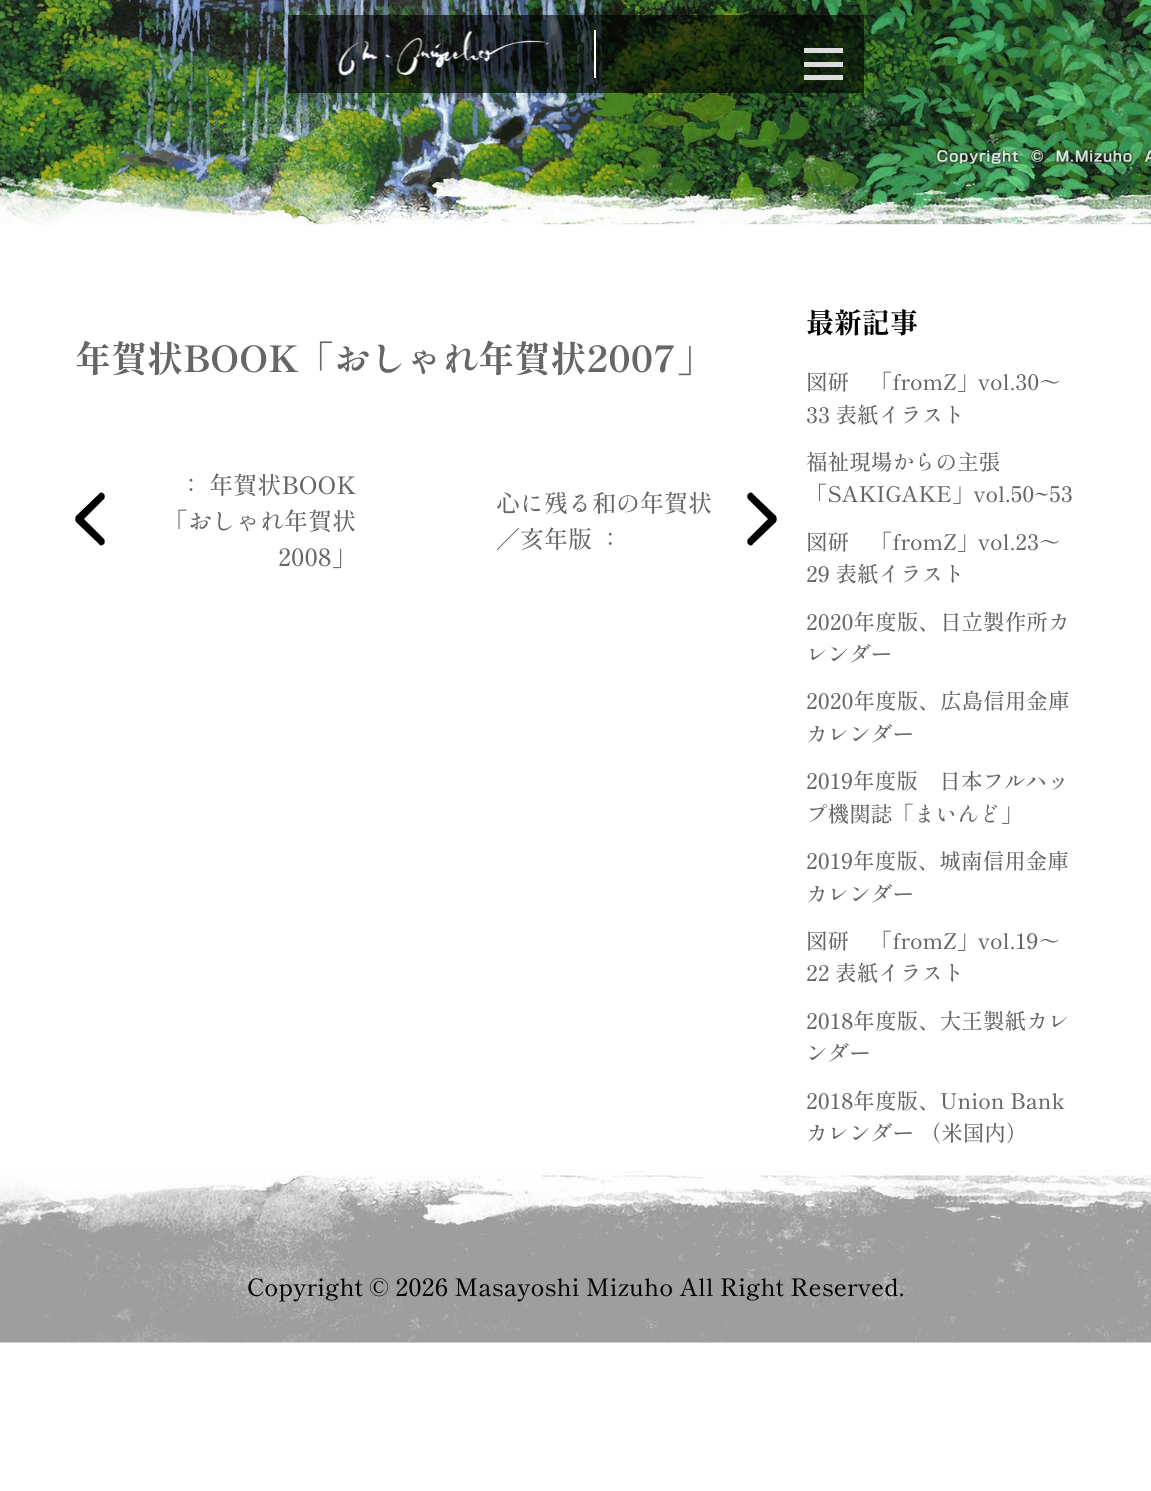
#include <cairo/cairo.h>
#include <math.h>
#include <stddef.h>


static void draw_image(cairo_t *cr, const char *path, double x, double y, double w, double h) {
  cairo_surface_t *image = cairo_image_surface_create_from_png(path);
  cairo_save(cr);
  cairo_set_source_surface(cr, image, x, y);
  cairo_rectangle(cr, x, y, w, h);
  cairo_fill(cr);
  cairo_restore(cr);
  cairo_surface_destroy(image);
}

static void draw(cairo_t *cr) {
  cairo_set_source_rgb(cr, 1, 1, 1);
  cairo_paint(cr);
  draw_image(cr, "images/1.png", 0, 0, 1151, 225);
  cairo_set_source_rgba(cr, 0, 0, 0, 0.6);
  cairo_rectangle(cr, 288, 15, 576, 78);
  cairo_fill(cr);
  cairo_set_source_rgb(cr, 1, 1, 1);
  cairo_rectangle(cr, 594, 30, 2, 48);
  cairo_fill(cr);
  draw_image(cr, "images/2.png", 338, 31, 211, 45);
  cairo_set_source_rgb(cr, 221 / 255.0, 221 / 255.0, 221 / 255.0);
  cairo_rectangle(cr, 804, 62, 39, 5);
  cairo_fill(cr);
  cairo_rectangle(cr, 804, 48, 39, 5);
  cairo_fill(cr);
  cairo_rectangle(cr, 804, 75, 39, 5);
  cairo_fill(cr);
  cairo_set_source_rgb(cr, 0, 0, 0);
  cairo_new_path(cr);
  cairo_move_to(cr, 76, 516);
  cairo_curve_to(cr, 75, 518, 75, 520, 76, 522);
  cairo_line_to(cr, 99, 544);
  cairo_curve_to(cr, 100, 546, 102, 546, 104, 544);
  cairo_curve_to(cr, 105, 543, 105, 540, 104, 539);
  cairo_line_to(cr, 84, 519);
  cairo_line_to(cr, 104, 499);
  cairo_curve_to(cr, 105, 498, 105, 495, 104, 494);
  cairo_curve_to(cr, 102, 492, 100, 492, 99, 494);
  cairo_close_path(cr);
  cairo_fill(cr);
  cairo_new_path(cr);
  cairo_move_to(cr, 776, 516);
  cairo_curve_to(cr, 777, 518, 777, 520, 776, 522);
  cairo_line_to(cr, 753, 544);
  cairo_curve_to(cr, 752, 546, 750, 546, 748, 544);
  cairo_curve_to(cr, 747, 543, 747, 540, 748, 539);
  cairo_line_to(cr, 768, 519);
  cairo_line_to(cr, 748, 499);
  cairo_curve_to(cr, 747, 498, 747, 495, 748, 494);
  cairo_curve_to(cr, 750, 492, 752, 492, 753, 494);
  cairo_close_path(cr);
  cairo_fill(cr);
  draw_image(cr, "images/3.png", 0, 1170, 1151, 173);
  cairo_select_font_face(cr, "Shippori Mincho", CAIRO_FONT_SLANT_NORMAL, CAIRO_FONT_WEIGHT_BOLD);
  cairo_set_font_size(cr, 36);
  cairo_set_source_rgb(cr, 102 / 255.0, 102 / 255.0, 102 / 255.0);
  cairo_move_to(cr, 75, 372);
  cairo_show_text(cr, "年賀状BOOK「おしゃれ年賀状2007」");
  cairo_select_font_face(cr, "Shippori Mincho Medium", CAIRO_FONT_SLANT_NORMAL, CAIRO_FONT_WEIGHT_NORMAL);
  cairo_set_font_size(cr, 24);
  cairo_move_to(cr, 179, 494);
  cairo_show_text(cr, "： 年賀状BOOK");
  cairo_move_to(cr, 164, 530);
  cairo_show_text(cr, "「おしゃれ年賀状");
  cairo_move_to(cr, 278, 566);
  cairo_show_text(cr, "2008」");
  cairo_move_to(cr, 496, 512);
  cairo_show_text(cr, "心に残る和の年賀状");
  cairo_move_to(cr, 496, 548);
  cairo_show_text(cr, "／亥年版 ：");
  cairo_select_font_face(cr, "Shippori Mincho", CAIRO_FONT_SLANT_NORMAL, CAIRO_FONT_WEIGHT_BOLD);
  cairo_set_font_size(cr, 28);
  cairo_set_source_rgb(cr, 3 / 255.0, 3 / 255.0, 3 / 255.0);
  cairo_move_to(cr, 806, 333);
  cairo_show_text(cr, "最新記事");
  cairo_select_font_face(cr, "Shippori Mincho Medium", CAIRO_FONT_SLANT_NORMAL, CAIRO_FONT_WEIGHT_NORMAL);
  cairo_set_font_size(cr, 21.6);
  cairo_set_source_rgb(cr, 102 / 255.0, 102 / 255.0, 102 / 255.0);
  cairo_move_to(cr, 806, 390);
  cairo_show_text(cr, "図研　「fromZ」vol.30～");
  cairo_move_to(cr, 806, 423);
  cairo_show_text(cr, "33 表紙イラスト");
  cairo_move_to(cr, 806, 470);
  cairo_show_text(cr, "福祉現場からの主張");
  cairo_move_to(cr, 806, 502);
  cairo_show_text(cr, "「SAKIGAKE」vol.50~53");
  cairo_move_to(cr, 806, 550);
  cairo_show_text(cr, "図研　「fromZ」vol.23～");
  cairo_move_to(cr, 806, 582);
  cairo_show_text(cr, "29 表紙イラスト");
  cairo_move_to(cr, 806, 630);
  cairo_show_text(cr, "2020年度版、日立製作所カ");
  cairo_move_to(cr, 806, 662);
  cairo_show_text(cr, "レンダー");
  cairo_move_to(cr, 806, 709);
  cairo_show_text(cr, "2020年度版、広島信用金庫");
  cairo_move_to(cr, 806, 742);
  cairo_show_text(cr, "カレンダー");
  cairo_move_to(cr, 806, 789);
  cairo_show_text(cr, "2019年度版　日本フルハッ");
  cairo_move_to(cr, 806, 822);
  cairo_show_text(cr, "プ機関誌「まいんど」");
  cairo_move_to(cr, 806, 869);
  cairo_show_text(cr, "2019年度版、城南信用金庫");
  cairo_move_to(cr, 806, 902);
  cairo_show_text(cr, "カレンダー");
  cairo_move_to(cr, 806, 949);
  cairo_show_text(cr, "図研　「fromZ」vol.19～");
  cairo_move_to(cr, 806, 981);
  cairo_show_text(cr, "22 表紙イラスト");
  cairo_move_to(cr, 806, 1029);
  cairo_show_text(cr, "2018年度版、大王製紙カレ");
  cairo_move_to(cr, 806, 1061);
  cairo_show_text(cr, "ンダー");
  cairo_move_to(cr, 806, 1109);
  cairo_show_text(cr, "2018年度版、Union Bank");
  cairo_move_to(cr, 806, 1141);
  cairo_show_text(cr, "カレンダー （米国内）");
  cairo_set_font_size(cr, 24);
  cairo_set_source_rgb(cr, 3 / 255.0, 3 / 255.0, 3 / 255.0);
  cairo_move_to(cr, 247, 1296);
  cairo_show_text(cr, "Copyright © 2026 Masayoshi Mizuho All Right Reserved.");
}

int main(void) {
  cairo_surface_t *surface = cairo_image_surface_create(CAIRO_FORMAT_RGB24, 1151, 1491);
  cairo_t *cr = cairo_create(surface);
  cairo_font_options_t *options = cairo_font_options_create();
  cairo_font_options_set_hint_metrics(options, CAIRO_HINT_METRICS_OFF);
  cairo_font_options_set_hint_style(options, CAIRO_HINT_STYLE_NONE);
  cairo_set_font_options(cr, options);
  cairo_set_miter_limit(cr, 4);
  draw(cr);
  cairo_surface_write_to_png(surface, "out.png");
  cairo_font_options_destroy(options);
  cairo_destroy(cr);
  cairo_surface_destroy(surface);
  return 0;
}
